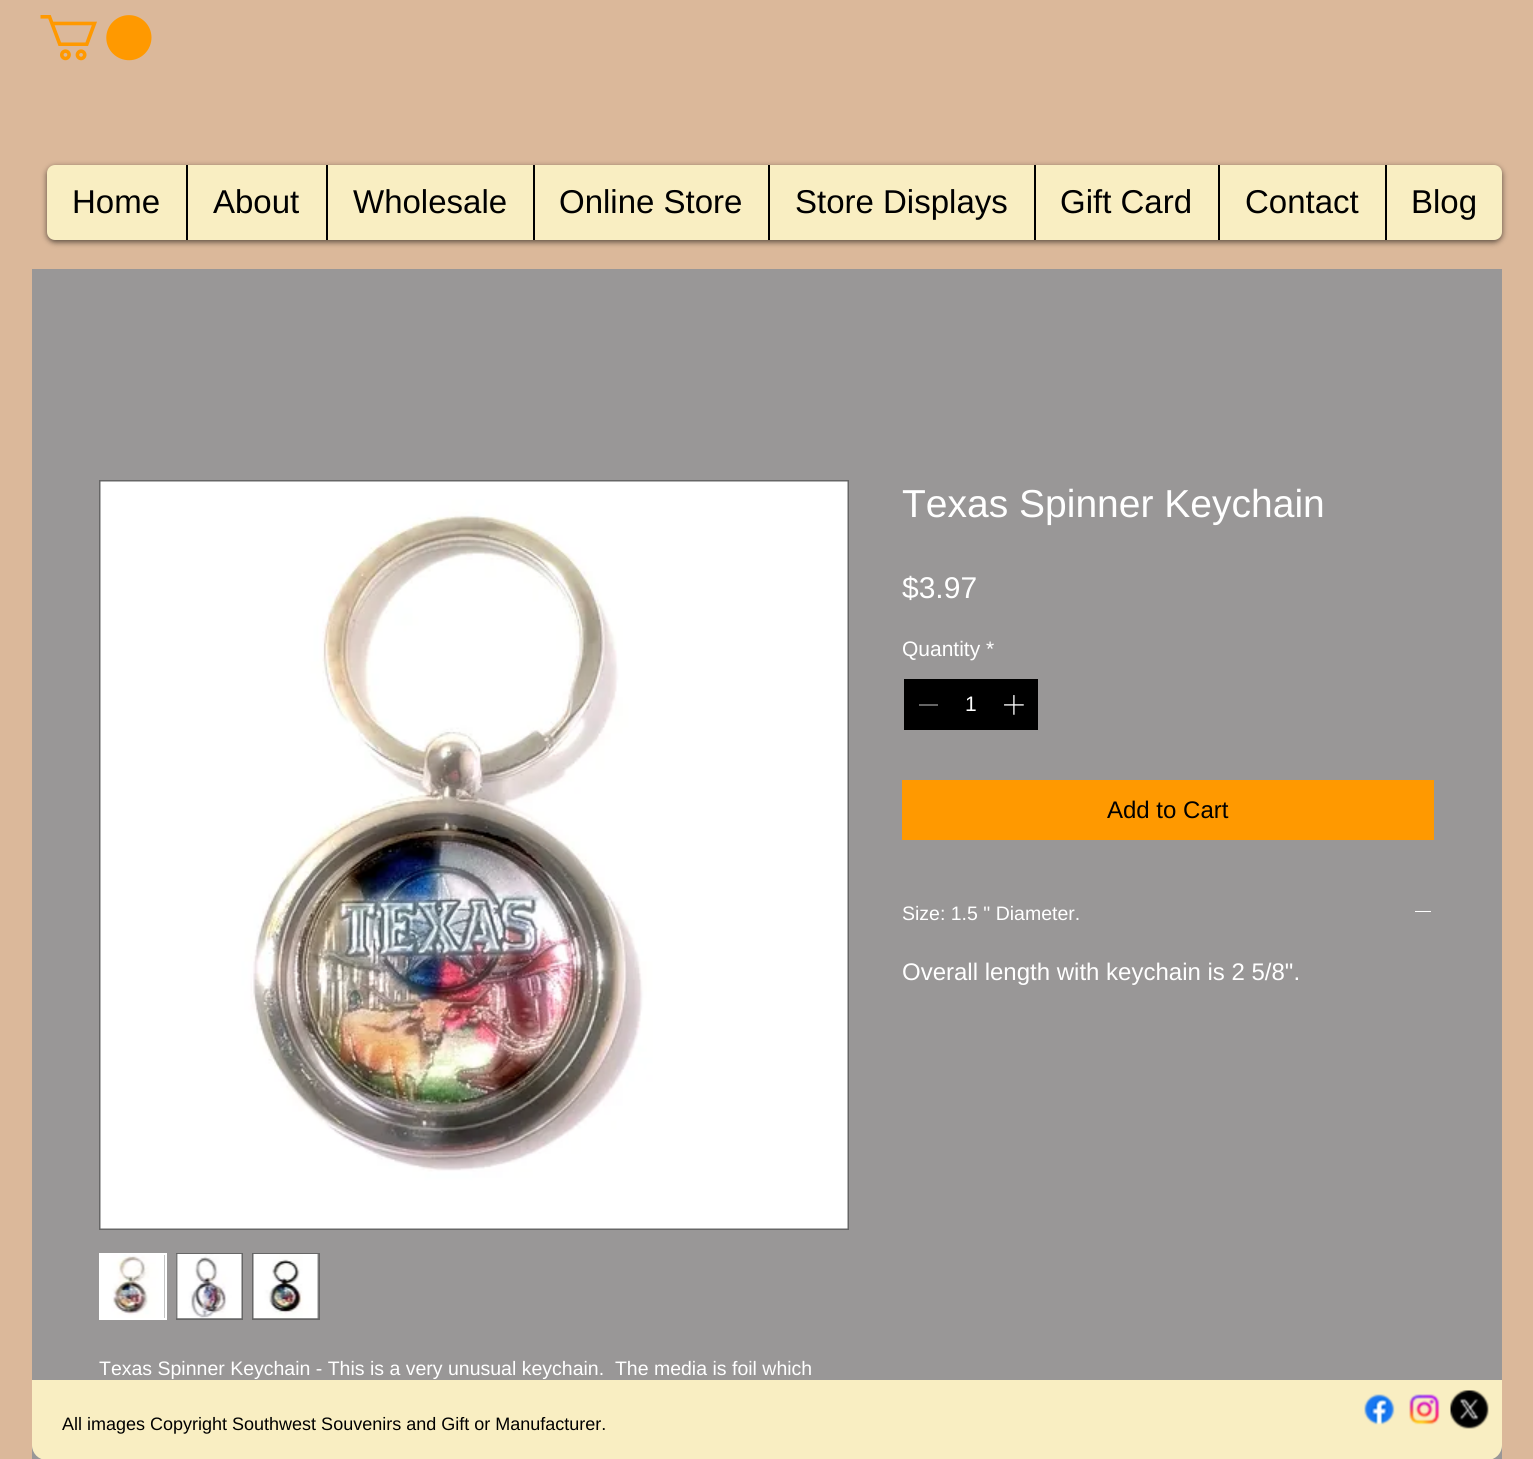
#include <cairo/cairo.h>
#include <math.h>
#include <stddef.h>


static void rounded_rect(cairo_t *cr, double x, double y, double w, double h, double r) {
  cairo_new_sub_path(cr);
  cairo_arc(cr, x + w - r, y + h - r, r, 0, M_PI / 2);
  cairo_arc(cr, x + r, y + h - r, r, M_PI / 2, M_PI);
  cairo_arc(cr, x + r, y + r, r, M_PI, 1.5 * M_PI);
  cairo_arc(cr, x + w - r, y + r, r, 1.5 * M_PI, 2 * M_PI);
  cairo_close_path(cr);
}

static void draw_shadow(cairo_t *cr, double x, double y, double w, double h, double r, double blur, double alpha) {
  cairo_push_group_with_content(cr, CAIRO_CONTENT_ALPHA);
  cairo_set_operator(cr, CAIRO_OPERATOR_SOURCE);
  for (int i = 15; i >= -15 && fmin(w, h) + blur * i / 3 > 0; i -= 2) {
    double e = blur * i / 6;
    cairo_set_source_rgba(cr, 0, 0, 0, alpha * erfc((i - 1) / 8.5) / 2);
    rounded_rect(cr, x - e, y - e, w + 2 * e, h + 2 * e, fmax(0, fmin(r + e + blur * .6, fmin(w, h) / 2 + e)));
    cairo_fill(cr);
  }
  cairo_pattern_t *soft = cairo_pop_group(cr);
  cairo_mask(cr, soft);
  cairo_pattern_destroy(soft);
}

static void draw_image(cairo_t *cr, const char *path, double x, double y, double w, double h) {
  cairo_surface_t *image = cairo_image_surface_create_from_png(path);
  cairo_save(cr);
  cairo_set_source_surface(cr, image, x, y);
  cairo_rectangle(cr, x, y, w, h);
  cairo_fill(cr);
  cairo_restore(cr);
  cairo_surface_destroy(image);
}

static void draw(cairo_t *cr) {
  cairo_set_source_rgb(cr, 219 / 255.0, 184 / 255.0, 154 / 255.0);
  cairo_paint(cr);
  draw_image(cr, "images/1.png", 40, 15, 112, 46);
  cairo_set_source_rgb(cr, 0, 0, 0);
  draw_shadow(cr, 47, 167, 1455, 75, 8, 3, 0.6);
  cairo_set_source_rgb(cr, 249 / 255.0, 238 / 255.0, 194 / 255.0);
  rounded_rect(cr, 47, 165, 1455, 75, 8);
  cairo_fill(cr);
  cairo_set_source_rgb(cr, 0, 0, 0);
  cairo_rectangle(cr, 186, 165, 2, 75);
  cairo_fill(cr);
  cairo_rectangle(cr, 326, 165, 2, 75);
  cairo_fill(cr);
  cairo_rectangle(cr, 533, 165, 2, 75);
  cairo_fill(cr);
  cairo_rectangle(cr, 768, 165, 2, 75);
  cairo_fill(cr);
  cairo_rectangle(cr, 1034, 165, 2, 75);
  cairo_fill(cr);
  cairo_rectangle(cr, 1218, 165, 2, 75);
  cairo_fill(cr);
  cairo_rectangle(cr, 1385, 165, 2, 75);
  cairo_fill(cr);
  cairo_set_source_rgb(cr, 153 / 255.0, 151 / 255.0, 151 / 255.0);
  cairo_rectangle(cr, 32, 269, 1470, 1190);
  cairo_fill(cr);
  cairo_set_source_rgb(cr, 0, 0, 0);
  cairo_rectangle(cr, 904, 679, 134, 51);
  cairo_fill(cr);
  cairo_set_source_rgb(cr, 100 / 255.0, 100 / 255.0, 100 / 255.0);
  cairo_rectangle(cr, 919, 704, 19, 2);
  cairo_fill(cr);
  draw_image(cr, "images/2.png", 1004, 695, 20, 20);
  cairo_set_source_rgb(cr, 1, 153 / 255.0, 0);
  cairo_rectangle(cr, 902, 780, 532, 60);
  cairo_fill(cr);
  cairo_set_source_rgb(cr, 1, 1, 1);
  cairo_rectangle(cr, 1415, 911, 16, 1);
  cairo_fill(cr);
  cairo_rectangle(cr, 100, 481, 748, 748);
  cairo_set_source_rgb(cr, 102 / 255.0, 102 / 255.0, 102 / 255.0);
  cairo_stroke(cr);
  draw_image(cr, "images/3.png", 100, 481, 748, 748);
  cairo_rectangle(cr, 164, 1255, 1, 63);
  cairo_fill(cr);
  cairo_rectangle(cr, 100, 1254, 66, 65);
  cairo_set_source_rgb(cr, 1, 1, 1);
  cairo_stroke(cr);
  draw_image(cr, "images/4.png", 101, 1254, 64, 64);
  cairo_set_source_rgb(cr, 102 / 255.0, 102 / 255.0, 102 / 255.0);
  cairo_rectangle(cr, 176, 1253, 67, 67);
  cairo_fill(cr);
  draw_image(cr, "images/5.png", 176, 1254, 66, 65);
  cairo_rectangle(cr, 252, 1253, 68, 67);
  cairo_fill(cr);
  draw_image(cr, "images/6.png", 253, 1254, 66, 65);
  cairo_set_source_rgb(cr, 249 / 255.0, 238 / 255.0, 194 / 255.0);
  cairo_new_path(cr);
  cairo_move_to(cr, 32, 1380);
  cairo_line_to(cr, 1502, 1380);
  cairo_line_to(cr, 1502, 1445);
  cairo_curve_to(cr, 1502, 1453.5, 1495.5, 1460, 1487, 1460);
  cairo_line_to(cr, 47, 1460);
  cairo_curve_to(cr, 38.5, 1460, 32, 1453.5, 32, 1445);
  cairo_close_path(cr);
  cairo_fill(cr);
  draw_image(cr, "images/7.png", 1364, 1394, 31, 31);
  draw_image(cr, "images/8.png", 1409, 1394, 31, 31);
  draw_image(cr, "images/9.png", 1450, 1390, 39, 39);
  cairo_select_font_face(cr, "Liberation Sans", CAIRO_FONT_SLANT_NORMAL, CAIRO_FONT_WEIGHT_NORMAL);
  cairo_set_font_size(cr, 33);
  cairo_set_source_rgb(cr, 0, 0, 0);
  cairo_move_to(cr, 72, 213);
  cairo_show_text(cr, "Home");
  cairo_move_to(cr, 213, 213);
  cairo_show_text(cr, "About");
  cairo_move_to(cr, 353, 213);
  cairo_show_text(cr, "Wholesale");
  cairo_move_to(cr, 559, 213);
  cairo_show_text(cr, "Online Store");
  cairo_move_to(cr, 795, 213);
  cairo_show_text(cr, "Store Displays");
  cairo_move_to(cr, 1060, 213);
  cairo_show_text(cr, "Gift Card");
  cairo_move_to(cr, 1245, 213);
  cairo_show_text(cr, "Contact");
  cairo_move_to(cr, 1411, 213);
  cairo_show_text(cr, "Blog");
  cairo_set_font_size(cr, 39);
  cairo_set_source_rgb(cr, 1, 1, 1);
  cairo_move_to(cr, 902, 517);
  cairo_show_text(cr, "Texas Spinner Keychain");
  cairo_set_font_size(cr, 30);
  cairo_move_to(cr, 902, 598);
  cairo_show_text(cr, "$3.97");
  cairo_set_font_size(cr, 21);
  cairo_move_to(cr, 902, 656);
  cairo_show_text(cr, "Quantity *");
  cairo_move_to(cr, 965, 711);
  cairo_show_text(cr, "1");
  cairo_set_font_size(cr, 24);
  cairo_set_source_rgb(cr, 0, 0, 0);
  cairo_move_to(cr, 1107, 818);
  cairo_show_text(cr, "Add to Cart");
  cairo_set_font_size(cr, 19.5);
  cairo_set_source_rgb(cr, 1, 1, 1);
  cairo_move_to(cr, 902, 920);
  cairo_show_text(cr, "Size: 1.5 \" Diameter.");
  cairo_set_font_size(cr, 24);
  cairo_move_to(cr, 902, 980);
  cairo_show_text(cr, "Overall length with keychain is 2 5/8\".");
  cairo_set_font_size(cr, 19.5);
  cairo_move_to(cr, 99, 1375);
  cairo_show_text(cr, "Texas Spinner Keychain - This is a very unusual keychain.  The media is foil which");
  cairo_set_font_size(cr, 18);
  cairo_set_source_rgb(cr, 0, 0, 0);
  cairo_move_to(cr, 62, 1430);
  cairo_show_text(cr, "All images Copyright Southwest Souvenirs and Gift or Manufacturer.");
}

int main(void) {
  cairo_surface_t *surface = cairo_image_surface_create(CAIRO_FORMAT_RGB24, 1533, 1459);
  cairo_t *cr = cairo_create(surface);
  cairo_font_options_t *options = cairo_font_options_create();
  cairo_font_options_set_hint_metrics(options, CAIRO_HINT_METRICS_OFF);
  cairo_font_options_set_hint_style(options, CAIRO_HINT_STYLE_NONE);
  cairo_set_font_options(cr, options);
  cairo_set_miter_limit(cr, 4);
  draw(cr);
  cairo_surface_write_to_png(surface, "out.png");
  cairo_font_options_destroy(options);
  cairo_destroy(cr);
  cairo_surface_destroy(surface);
  return 0;
}
